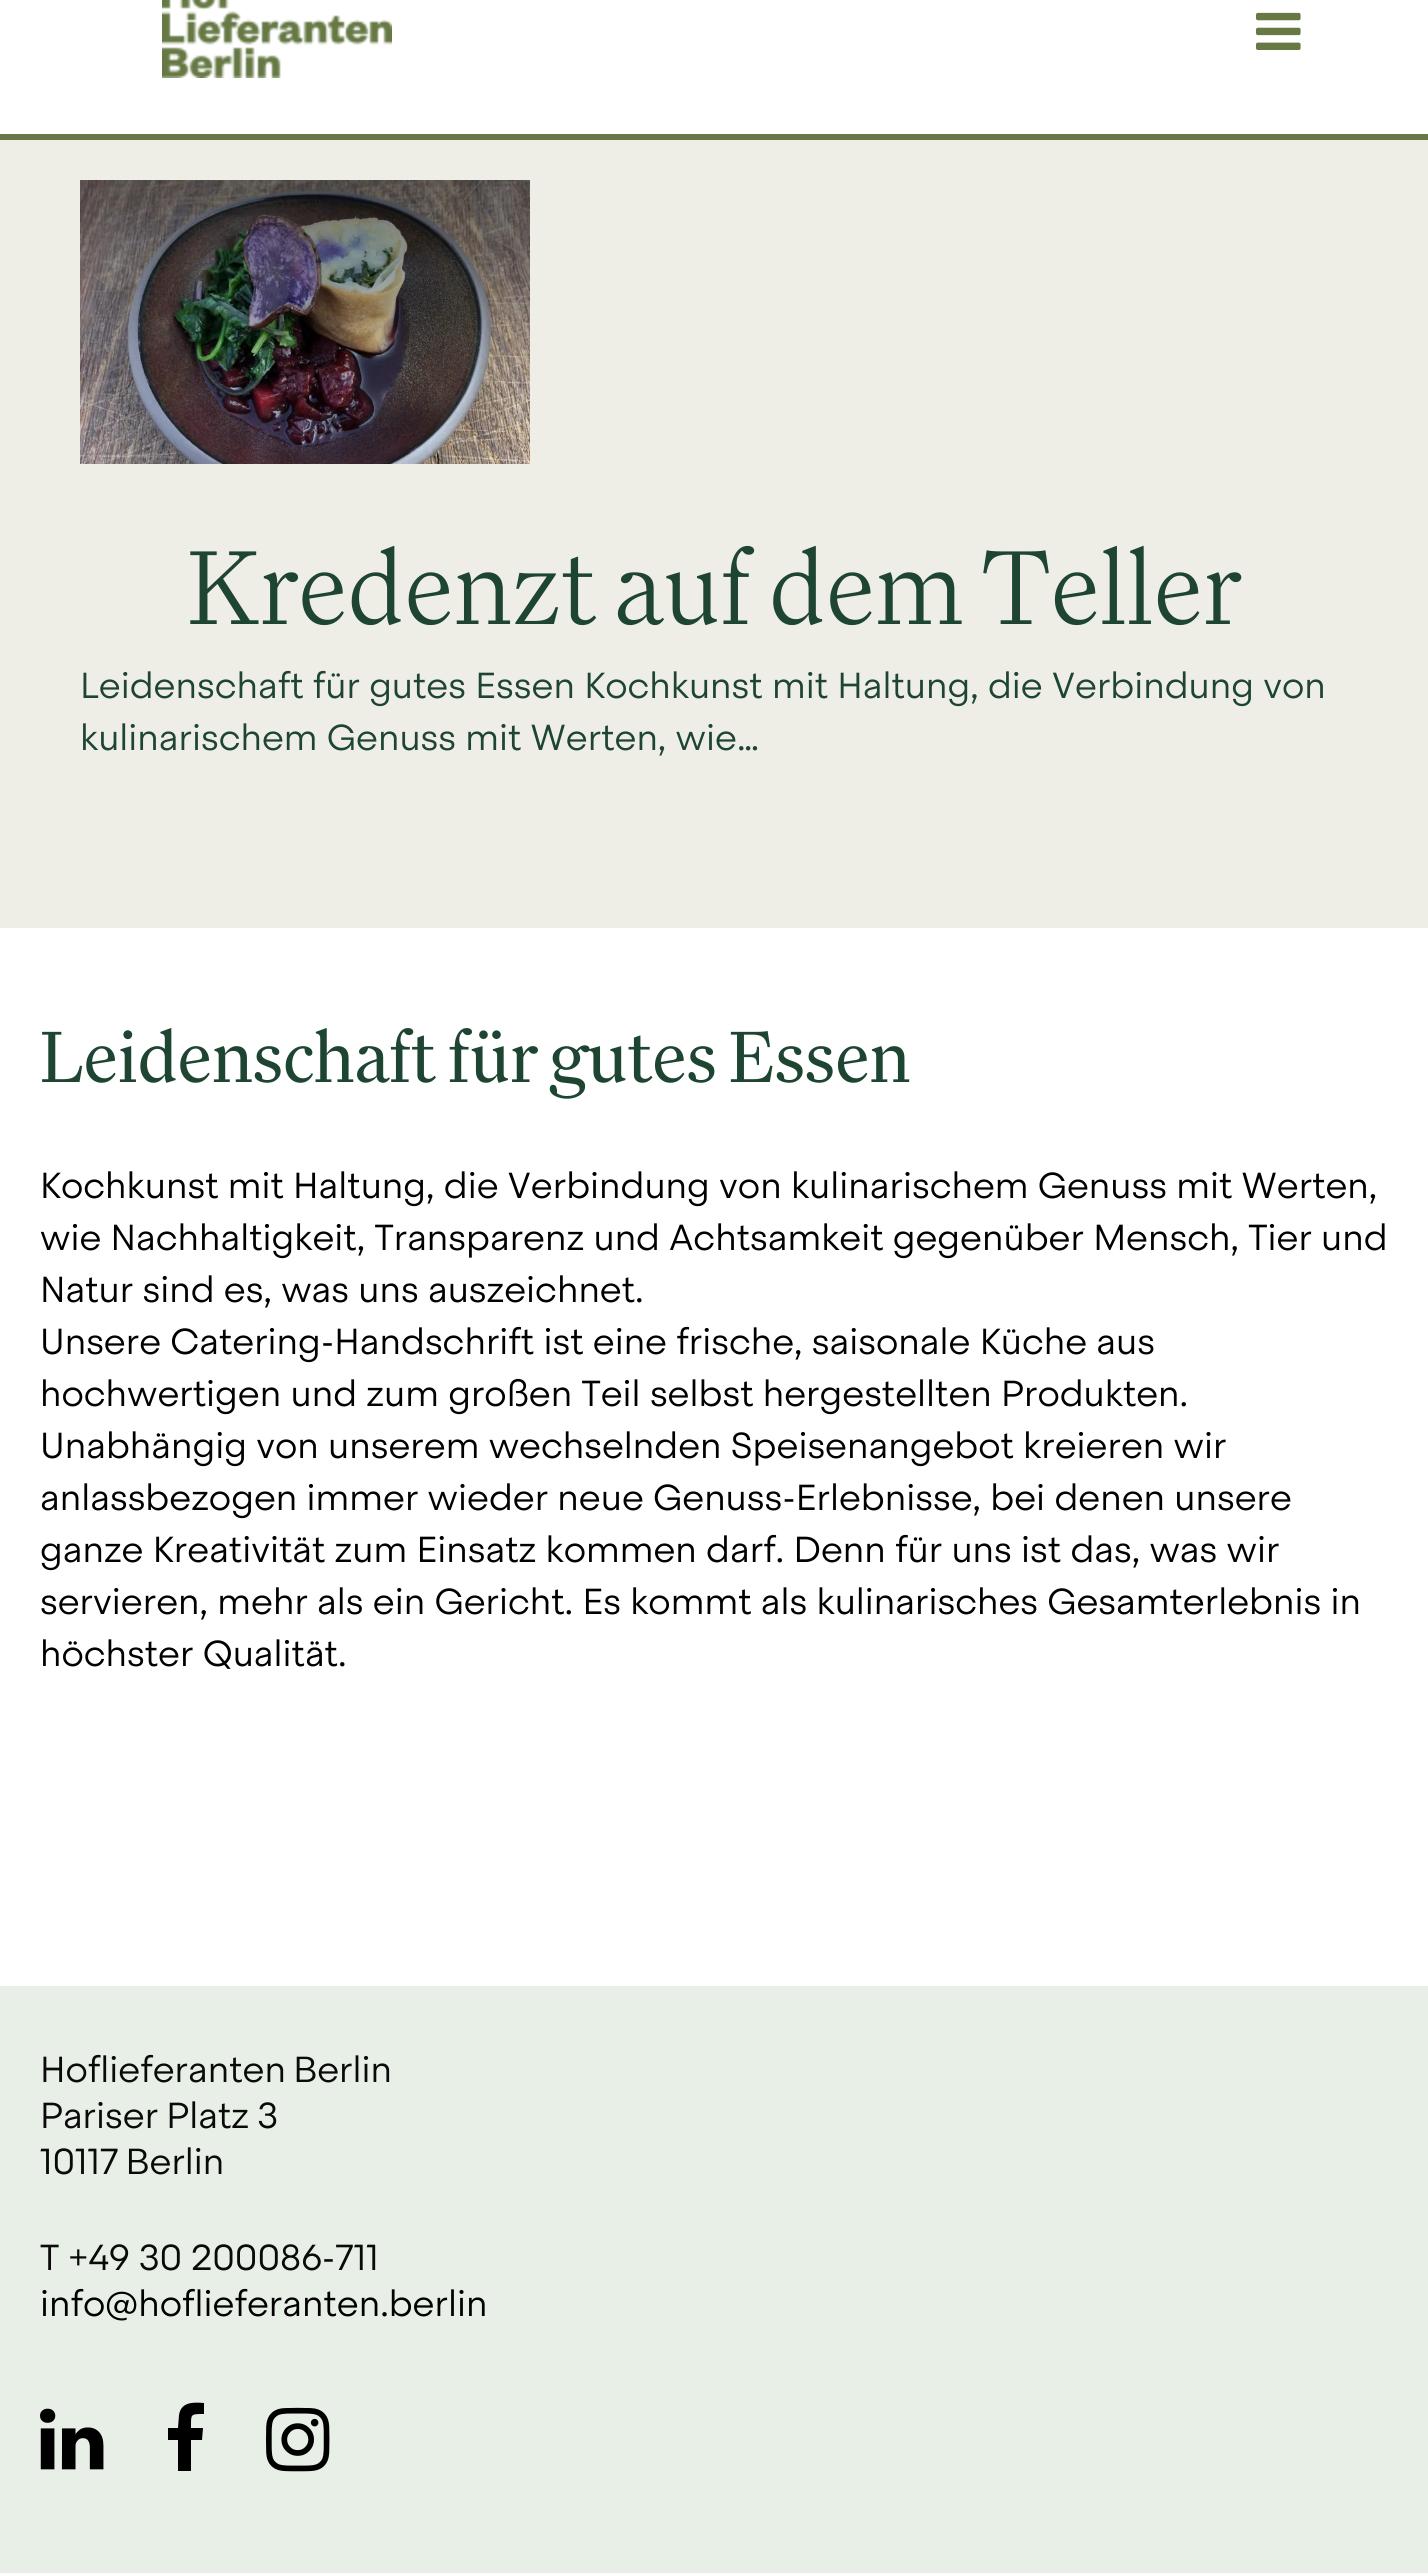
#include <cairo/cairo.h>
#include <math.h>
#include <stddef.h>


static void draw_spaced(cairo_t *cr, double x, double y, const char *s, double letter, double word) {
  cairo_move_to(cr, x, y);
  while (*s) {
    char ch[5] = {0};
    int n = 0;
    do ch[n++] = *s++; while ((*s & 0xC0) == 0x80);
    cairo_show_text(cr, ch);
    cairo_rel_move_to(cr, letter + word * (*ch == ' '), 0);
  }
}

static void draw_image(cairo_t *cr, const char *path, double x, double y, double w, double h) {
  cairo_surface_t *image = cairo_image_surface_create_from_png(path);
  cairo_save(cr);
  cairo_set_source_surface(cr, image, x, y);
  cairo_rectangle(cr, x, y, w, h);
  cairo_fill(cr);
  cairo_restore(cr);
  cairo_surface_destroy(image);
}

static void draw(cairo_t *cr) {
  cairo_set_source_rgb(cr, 1, 1, 1);
  cairo_paint(cr);
  cairo_set_source_rgb(cr, 102 / 255.0, 121 / 255.0, 69 / 255.0);
  cairo_rectangle(cr, 0, 134, 1428, 6);
  cairo_fill(cr);
  draw_image(cr, "images/1.png", 162, 0, 230, 78);
  draw_image(cr, "images/2.png", 1256, 12, 45, 38);
  cairo_set_source_rgb(cr, 239 / 255.0, 238 / 255.0, 230 / 255.0);
  cairo_rectangle(cr, 0, 140, 1428, 788);
  cairo_fill(cr);
  draw_image(cr, "images/3.png", 80, 180, 450, 284);
  cairo_set_source_rgb(cr, 231 / 255.0, 239 / 255.0, 230 / 255.0);
  cairo_rectangle(cr, 0, 1986, 1428, 587);
  cairo_fill(cr);
  draw_image(cr, "images/4.png", 40, 2408, 64, 62);
  cairo_set_source_rgb(cr, 0, 0, 0);
  cairo_new_path(cr);
  cairo_move_to(cr, 204, 2403);
  cairo_line_to(cr, 204, 2414);
  cairo_curve_to(cr, 190, 2414, 191, 2414, 191, 2428);
  cairo_line_to(cr, 203, 2428);
  cairo_line_to(cr, 202, 2440);
  cairo_line_to(cr, 191, 2440);
  cairo_line_to(cr, 191, 2471);
  cairo_line_to(cr, 178, 2471);
  cairo_line_to(cr, 178, 2440);
  cairo_line_to(cr, 168, 2440);
  cairo_line_to(cr, 168, 2428);
  cairo_line_to(cr, 178, 2428);
  cairo_line_to(cr, 179, 2415);
  cairo_curve_to(cr, 181, 2402, 193, 2402, 204, 2403);
  cairo_close_path(cr);
  cairo_fill(cr);
  draw_image(cr, "images/5.png", 266, 2407, 64, 65);
  cairo_select_font_face(cr, "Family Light", CAIRO_FONT_SLANT_NORMAL, CAIRO_FONT_WEIGHT_NORMAL);
  cairo_set_font_size(cr, 110);
  cairo_set_source_rgb(cr, 30 / 255.0, 69 / 255.0, 50 / 255.0);
  cairo_move_to(cr, 187, 624);
  cairo_show_text(cr, "Kredenzt auf dem Teller");
  cairo_select_font_face(cr, "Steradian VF", CAIRO_FONT_SLANT_NORMAL, CAIRO_FONT_WEIGHT_NORMAL);
  cairo_set_font_size(cr, 36);
  cairo_move_to(cr, 80, 698);
  cairo_show_text(cr, "Leidenschaft für gutes Essen Kochkunst mit Haltung, die Verbindung von");
  cairo_move_to(cr, 80, 750);
  cairo_show_text(cr, "kulinarischem Genuss mit Werten, wie…");
  cairo_select_font_face(cr, "Family", CAIRO_FONT_SLANT_NORMAL, CAIRO_FONT_WEIGHT_NORMAL);
  cairo_set_font_size(cr, 76);
  cairo_move_to(cr, 40, 1082);
  cairo_show_text(cr, "Leidenschaft für gutes Essen");
  cairo_select_font_face(cr, "Steradian VF", CAIRO_FONT_SLANT_NORMAL, CAIRO_FONT_WEIGHT_NORMAL);
  cairo_set_font_size(cr, 36);
  cairo_set_source_rgb(cr, 0, 0, 0);
  cairo_move_to(cr, 40, 1198);
  cairo_show_text(cr, "Kochkunst mit Haltung, die Verbindung von kulinarischem Genuss mit Werten,");
  cairo_move_to(cr, 40, 1250);
  cairo_show_text(cr, "wie Nachhaltigkeit, Transparenz und Achtsamkeit gegenüber Mensch, Tier und");
  cairo_move_to(cr, 40, 1302);
  cairo_show_text(cr, "Natur sind es, was uns auszeichnet.");
  cairo_move_to(cr, 40, 1354);
  cairo_show_text(cr, "Unsere Catering-Handschrift ist eine frische, saisonale Küche aus");
  cairo_move_to(cr, 40, 1406);
  cairo_show_text(cr, "hochwertigen und zum großen Teil selbst hergestellten Produkten.");
  cairo_move_to(cr, 40, 1458);
  cairo_show_text(cr, "Unabhängig von unserem wechselnden Speisenangebot kreieren wir");
  cairo_move_to(cr, 40, 1510);
  cairo_show_text(cr, "anlassbezogen immer wieder neue Genuss-Erlebnisse, bei denen unsere");
  cairo_move_to(cr, 40, 1562);
  cairo_show_text(cr, "ganze Kreativität zum Einsatz kommen darf. Denn für uns ist das, was wir");
  cairo_move_to(cr, 40, 1614);
  cairo_show_text(cr, "servieren, mehr als ein Gericht. Es kommt als kulinarisches Gesamterlebnis in");
  cairo_move_to(cr, 40, 1666);
  cairo_show_text(cr, "höchster Qualität.");
  cairo_set_source_rgb(cr, 10 / 255.0, 10 / 255.0, 10 / 255.0);
  draw_spaced(cr, 40, 2082, "Hoflieferanten Berlin", 0, -2);
  draw_spaced(cr, 40, 2128, "Pariser Platz 3", 0, -1);
  draw_spaced(cr, 40, 2174, "10117 Berlin", 0, -2);
  draw_spaced(cr, 40, 2270, "T +49 30 200086-711", 0, -0.5);
  cairo_set_source_rgb(cr, 0, 0, 0);
  cairo_move_to(cr, 40, 2316);
  cairo_show_text(cr, "info@hoflieferanten.berlin");
}

int main(void) {
  cairo_surface_t *surface = cairo_image_surface_create(CAIRO_FORMAT_RGB24, 1428, 2573);
  cairo_t *cr = cairo_create(surface);
  cairo_font_options_t *options = cairo_font_options_create();
  cairo_font_options_set_hint_metrics(options, CAIRO_HINT_METRICS_OFF);
  cairo_font_options_set_hint_style(options, CAIRO_HINT_STYLE_NONE);
  cairo_set_font_options(cr, options);
  cairo_set_miter_limit(cr, 4);
  draw(cr);
  cairo_surface_write_to_png(surface, "out.png");
  cairo_font_options_destroy(options);
  cairo_destroy(cr);
  cairo_surface_destroy(surface);
  return 0;
}
